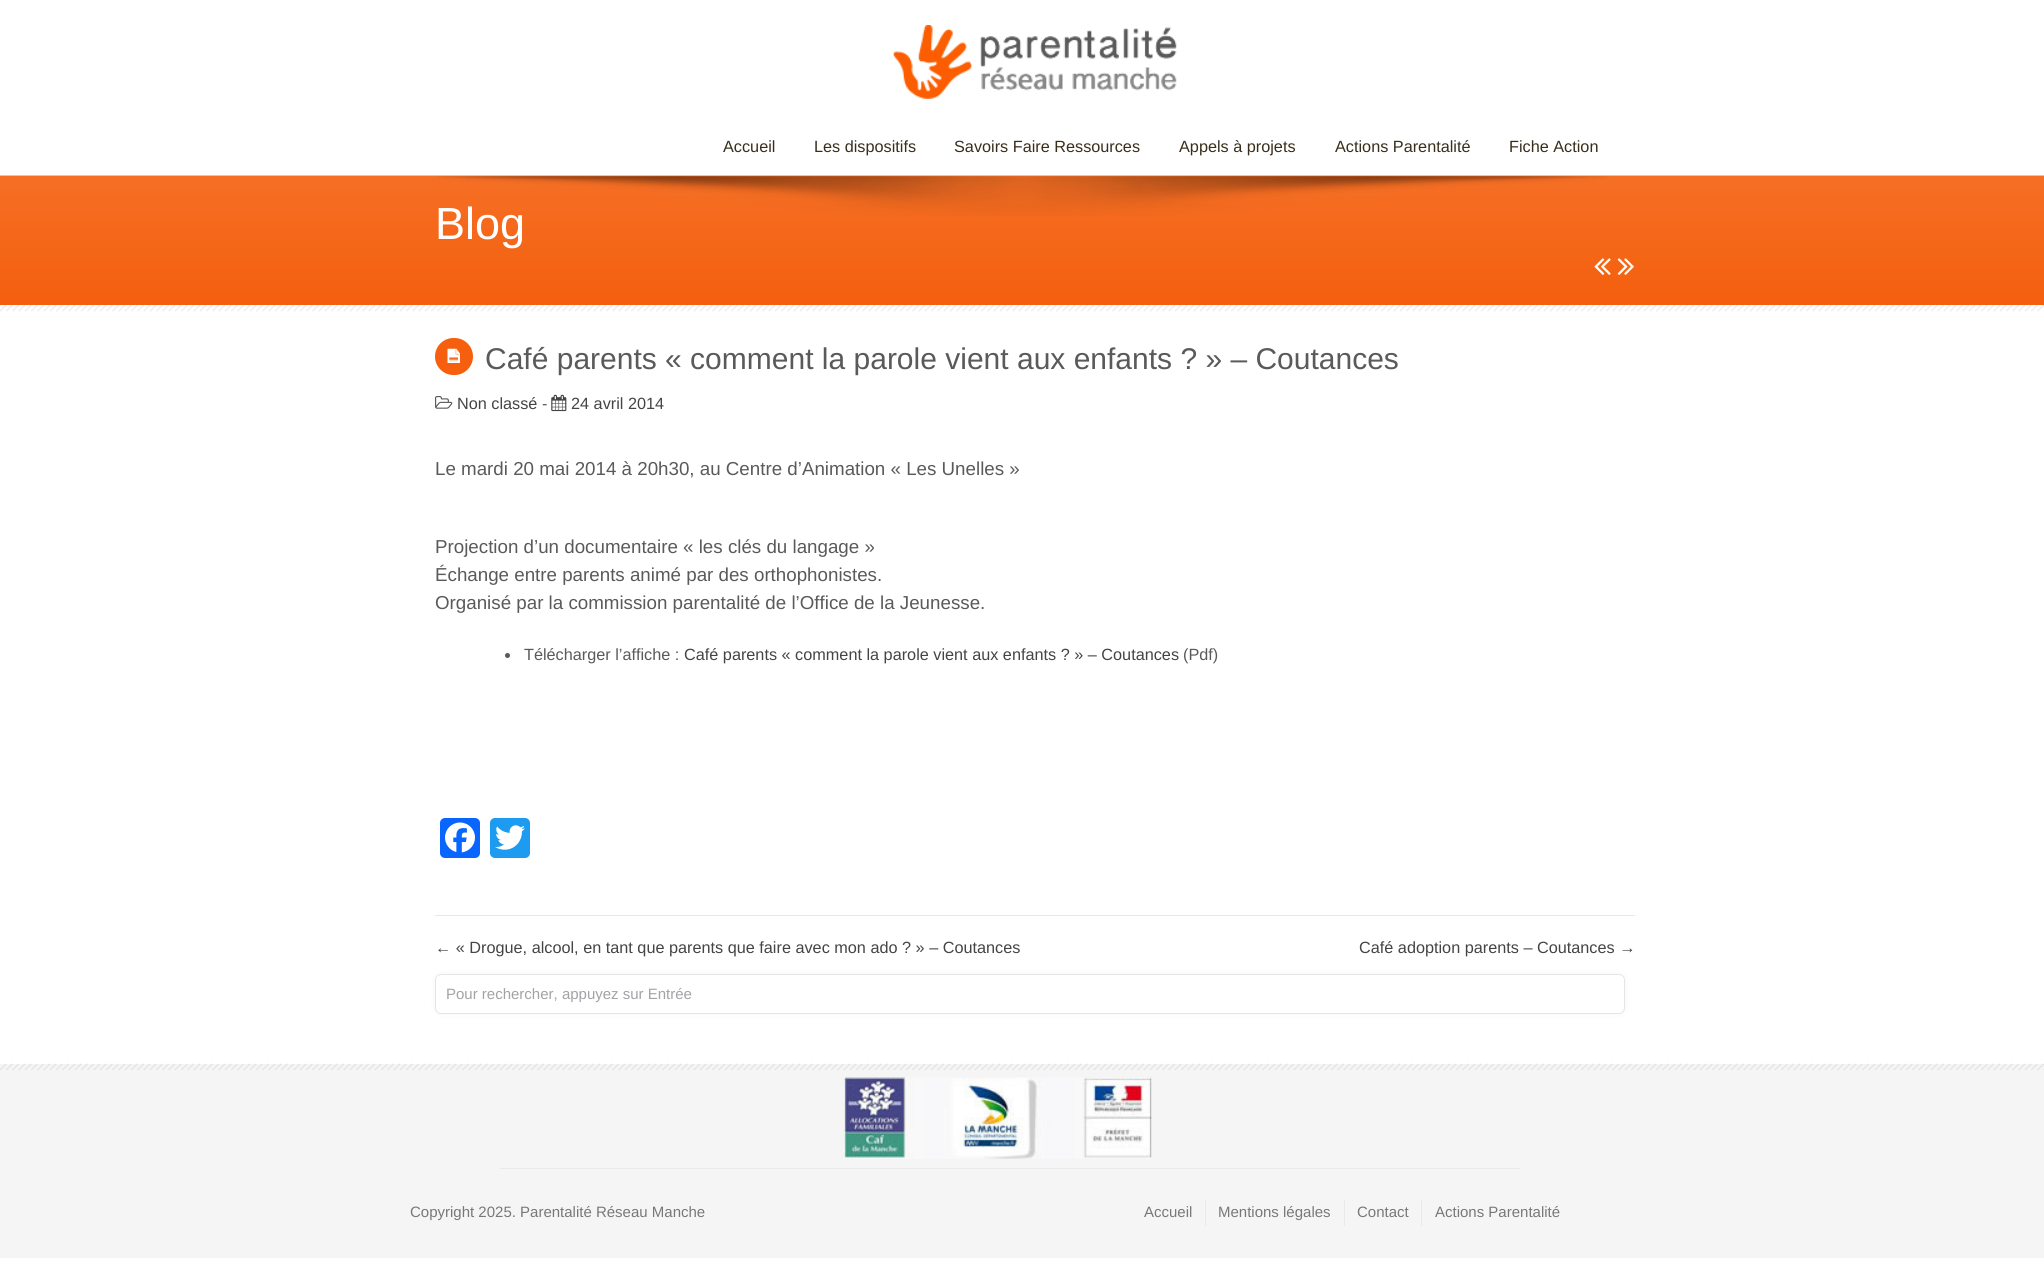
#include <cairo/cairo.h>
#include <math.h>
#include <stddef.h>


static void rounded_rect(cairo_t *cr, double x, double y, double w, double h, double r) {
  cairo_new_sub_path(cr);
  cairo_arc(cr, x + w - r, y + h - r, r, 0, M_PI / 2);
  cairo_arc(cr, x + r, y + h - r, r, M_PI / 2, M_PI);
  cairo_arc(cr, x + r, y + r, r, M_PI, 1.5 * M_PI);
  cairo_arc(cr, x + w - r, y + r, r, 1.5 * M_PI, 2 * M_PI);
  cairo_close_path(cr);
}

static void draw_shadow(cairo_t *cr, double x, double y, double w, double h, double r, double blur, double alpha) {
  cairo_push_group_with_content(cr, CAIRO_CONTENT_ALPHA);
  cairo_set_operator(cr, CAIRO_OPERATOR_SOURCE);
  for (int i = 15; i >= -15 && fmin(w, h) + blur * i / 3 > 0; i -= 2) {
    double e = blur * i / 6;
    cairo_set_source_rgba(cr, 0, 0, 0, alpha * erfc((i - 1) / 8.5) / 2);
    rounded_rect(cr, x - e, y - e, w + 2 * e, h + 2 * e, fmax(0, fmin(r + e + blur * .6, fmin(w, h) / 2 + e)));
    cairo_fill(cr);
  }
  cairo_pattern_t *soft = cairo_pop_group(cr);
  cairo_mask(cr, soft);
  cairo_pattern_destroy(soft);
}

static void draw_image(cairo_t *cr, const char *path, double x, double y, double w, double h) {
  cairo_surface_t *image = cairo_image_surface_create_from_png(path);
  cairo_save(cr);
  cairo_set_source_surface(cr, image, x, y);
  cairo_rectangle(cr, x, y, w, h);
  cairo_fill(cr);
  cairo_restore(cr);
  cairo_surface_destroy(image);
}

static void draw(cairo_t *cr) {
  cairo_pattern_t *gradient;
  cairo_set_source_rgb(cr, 1, 1, 1);
  cairo_paint(cr);
  cairo_set_source_rgb(cr, 204 / 255.0, 204 / 255.0, 204 / 255.0);
  cairo_rectangle(cr, 0, 175, 2044, 1);
  cairo_fill(cr);
  draw_image(cr, "images/1.png", 893, 25, 284, 74);
  gradient = cairo_pattern_create_linear(1023, 176, 1023, 305);
  cairo_pattern_add_color_stop_rgba(gradient, 0, 245 / 255.0, 111 / 255.0, 37 / 255.0, 1);
  cairo_pattern_add_color_stop_rgba(gradient, 1, 244 / 255.0, 95 / 255.0, 13 / 255.0, 1);
  cairo_set_source(cr, gradient);
  cairo_pattern_destroy(gradient);
  cairo_rectangle(cr, 0, 176, 2044, 129);
  cairo_fill(cr);
  draw_image(cr, "images/2.png", 437, 176, 1171, 40);
  draw_image(cr, "images/3.png", 1594, 258, 17, 17);
  draw_image(cr, "images/4.png", 1617, 258, 17, 17);
  draw_image(cr, "images/5.png", 0, 305, 2044, 7);
  cairo_set_source_rgb(cr, 245 / 255.0, 95 / 255.0, 13 / 255.0);
  rounded_rect(cr, 435, 338, 38, 37, 18.5);
  cairo_fill(cr);
  draw_image(cr, "images/6.png", 447, 348, 13, 15);
  draw_image(cr, "images/7.png", 435, 396, 18, 13);
  draw_image(cr, "images/8.png", 551, 394, 16, 18);
  cairo_set_source_rgb(cr, 90 / 255.0, 90 / 255.0, 90 / 255.0);
  cairo_arc(cr, 507.5, 655.5, 2.5, 0, 2 * M_PI);
  cairo_fill(cr);
  cairo_set_source_rgb(cr, 8 / 255.0, 102 / 255.0, 1);
  rounded_rect(cr, 440, 818, 40, 40, 5);
  cairo_fill(cr);
  draw_image(cr, "images/9.png", 445, 822, 30, 31);
  cairo_set_source_rgb(cr, 29 / 255.0, 155 / 255.0, 240 / 255.0);
  rounded_rect(cr, 490, 818, 40, 40, 5);
  cairo_fill(cr);
  draw_image(cr, "images/10.png", 495, 825, 30, 25);
  cairo_set_source_rgb(cr, 231 / 255.0, 231 / 255.0, 231 / 255.0);
  cairo_rectangle(cr, 435, 915, 1200, 1);
  cairo_fill(cr);
  cairo_set_source_rgb(cr, 50 / 255.0, 50 / 255.0, 50 / 255.0);
  draw_shadow(cr, 435, 974, 1190, 40, 6, 3, 0.05);
  cairo_save(cr);
  rounded_rect(cr, 435, 974, 1190, 40, 6);
  cairo_clip(cr);
  cairo_set_source_rgb(cr, 1, 1, 1);
  cairo_rectangle(cr, 435, 975, 1190, 38);
  cairo_fill(cr);
  cairo_restore(cr);
  rounded_rect(cr, 435.5, 974.5, 1189, 39, 5.5);
  cairo_set_source_rgb(cr, 229 / 255.0, 229 / 255.0, 229 / 255.0);
  cairo_set_line_width(cr, 1);
  cairo_stroke(cr);
  cairo_set_source_rgb(cr, 245 / 255.0, 245 / 255.0, 245 / 255.0);
  cairo_rectangle(cr, 0, 1064, 2044, 194);
  cairo_fill(cr);
  draw_image(cr, "images/11.png", 0, 1063, 2044, 7);
  draw_image(cr, "images/12.png", 843, 1077, 309, 82);
  cairo_set_source_rgb(cr, 233 / 255.0, 233 / 255.0, 233 / 255.0);
  cairo_rectangle(cr, 500, 1168, 1020, 1);
  cairo_fill(cr);
  cairo_rectangle(cr, 1205, 1200, 1, 26);
  cairo_fill(cr);
  cairo_rectangle(cr, 1344, 1200, 1, 26);
  cairo_fill(cr);
  cairo_rectangle(cr, 1421, 1200, 1, 26);
  cairo_fill(cr);
  cairo_select_font_face(cr, "Liberation Sans", CAIRO_FONT_SLANT_NORMAL, CAIRO_FONT_WEIGHT_NORMAL);
  cairo_set_font_size(cr, 16.25);
  cairo_set_source_rgb(cr, 57 / 255.0, 46 / 255.0, 28 / 255.0);
  cairo_move_to(cr, 723, 152);
  cairo_show_text(cr, "Accueil");
  cairo_move_to(cr, 814, 152);
  cairo_show_text(cr, "Les dispositifs");
  cairo_move_to(cr, 954, 152);
  cairo_show_text(cr, "Savoirs Faire Ressources");
  cairo_move_to(cr, 1179, 152);
  cairo_show_text(cr, "Appels à projets");
  cairo_move_to(cr, 1335, 152);
  cairo_show_text(cr, "Actions Parentalité");
  cairo_move_to(cr, 1509, 152);
  cairo_show_text(cr, "Fiche Action");
  cairo_set_font_size(cr, 45);
  cairo_set_source_rgb(cr, 1, 1, 1);
  cairo_move_to(cr, 435, 239);
  cairo_show_text(cr, "Blog");
  cairo_set_font_size(cr, 30);
  cairo_set_source_rgb(cr, 90 / 255.0, 90 / 255.0, 90 / 255.0);
  cairo_move_to(cr, 485, 369);
  cairo_show_text(cr, "Café parents « comment la parole vient aux enfants ? » – Coutances");
  cairo_set_font_size(cr, 16.25);
  cairo_set_source_rgb(cr, 68 / 255.0, 68 / 255.0, 68 / 255.0);
  cairo_move_to(cr, 457, 409);
  cairo_show_text(cr, "Non classé");
  cairo_set_source_rgb(cr, 90 / 255.0, 90 / 255.0, 90 / 255.0);
  cairo_move_to(cr, 542, 409);
  cairo_show_text(cr, "-");
  cairo_set_source_rgb(cr, 68 / 255.0, 68 / 255.0, 68 / 255.0);
  cairo_move_to(cr, 571, 409);
  cairo_show_text(cr, "24 avril 2014");
  cairo_set_font_size(cr, 18.75);
  cairo_set_source_rgb(cr, 90 / 255.0, 90 / 255.0, 90 / 255.0);
  cairo_move_to(cr, 435, 475);
  cairo_show_text(cr, "Le mardi 20 mai 2014 à 20h30, au Centre d’Animation « Les Unelles »");
  cairo_move_to(cr, 435, 553);
  cairo_show_text(cr, "Projection d’un documentaire « les clés du langage »");
  cairo_move_to(cr, 435, 581);
  cairo_show_text(cr, "Échange entre parents animé par des orthophonistes.");
  cairo_move_to(cr, 435, 609);
  cairo_show_text(cr, "Organisé par la commission parentalité de l’Office de la Jeunesse.");
  cairo_set_font_size(cr, 16.25);
  cairo_move_to(cr, 524, 660);
  cairo_show_text(cr, "Télécharger l’affiche :");
  cairo_set_source_rgb(cr, 68 / 255.0, 68 / 255.0, 68 / 255.0);
  cairo_move_to(cr, 684, 660);
  cairo_show_text(cr, "Café parents « comment la parole vient aux enfants ? » – Coutances");
  cairo_set_source_rgb(cr, 90 / 255.0, 90 / 255.0, 90 / 255.0);
  cairo_move_to(cr, 1183, 660);
  cairo_show_text(cr, "(Pdf)");
  cairo_set_source_rgb(cr, 68 / 255.0, 68 / 255.0, 68 / 255.0);
  cairo_move_to(cr, 435, 953);
  cairo_show_text(cr, "← « Drogue, alcool, en tant que parents que faire avec mon ado ? » – Coutances");
  cairo_move_to(cr, 1359, 953);
  cairo_show_text(cr, "Café adoption parents – Coutances →");
  cairo_set_font_size(cr, 15);
  cairo_set_source_rgb(cr, 161 / 255.0, 163 / 255.0, 166 / 255.0);
  cairo_move_to(cr, 446, 999);
  cairo_show_text(cr, "Pour rechercher, appuyez sur Entrée");
  cairo_set_source_rgb(cr, 120 / 255.0, 120 / 255.0, 120 / 255.0);
  cairo_move_to(cr, 410, 1217);
  cairo_show_text(cr, "Copyright 2025. Parentalité Réseau Manche");
  cairo_move_to(cr, 1144, 1217);
  cairo_show_text(cr, "Accueil");
  cairo_move_to(cr, 1218, 1217);
  cairo_show_text(cr, "Mentions légales");
  cairo_move_to(cr, 1357, 1217);
  cairo_show_text(cr, "Contact");
  cairo_move_to(cr, 1435, 1217);
  cairo_show_text(cr, "Actions Parentalité");
}

int main(void) {
  cairo_surface_t *surface = cairo_image_surface_create(CAIRO_FORMAT_RGB24, 2044, 1287);
  cairo_t *cr = cairo_create(surface);
  cairo_font_options_t *options = cairo_font_options_create();
  cairo_font_options_set_hint_metrics(options, CAIRO_HINT_METRICS_OFF);
  cairo_font_options_set_hint_style(options, CAIRO_HINT_STYLE_NONE);
  cairo_set_font_options(cr, options);
  cairo_set_miter_limit(cr, 4);
  draw(cr);
  cairo_surface_write_to_png(surface, "out.png");
  cairo_font_options_destroy(options);
  cairo_destroy(cr);
  cairo_surface_destroy(surface);
  return 0;
}
